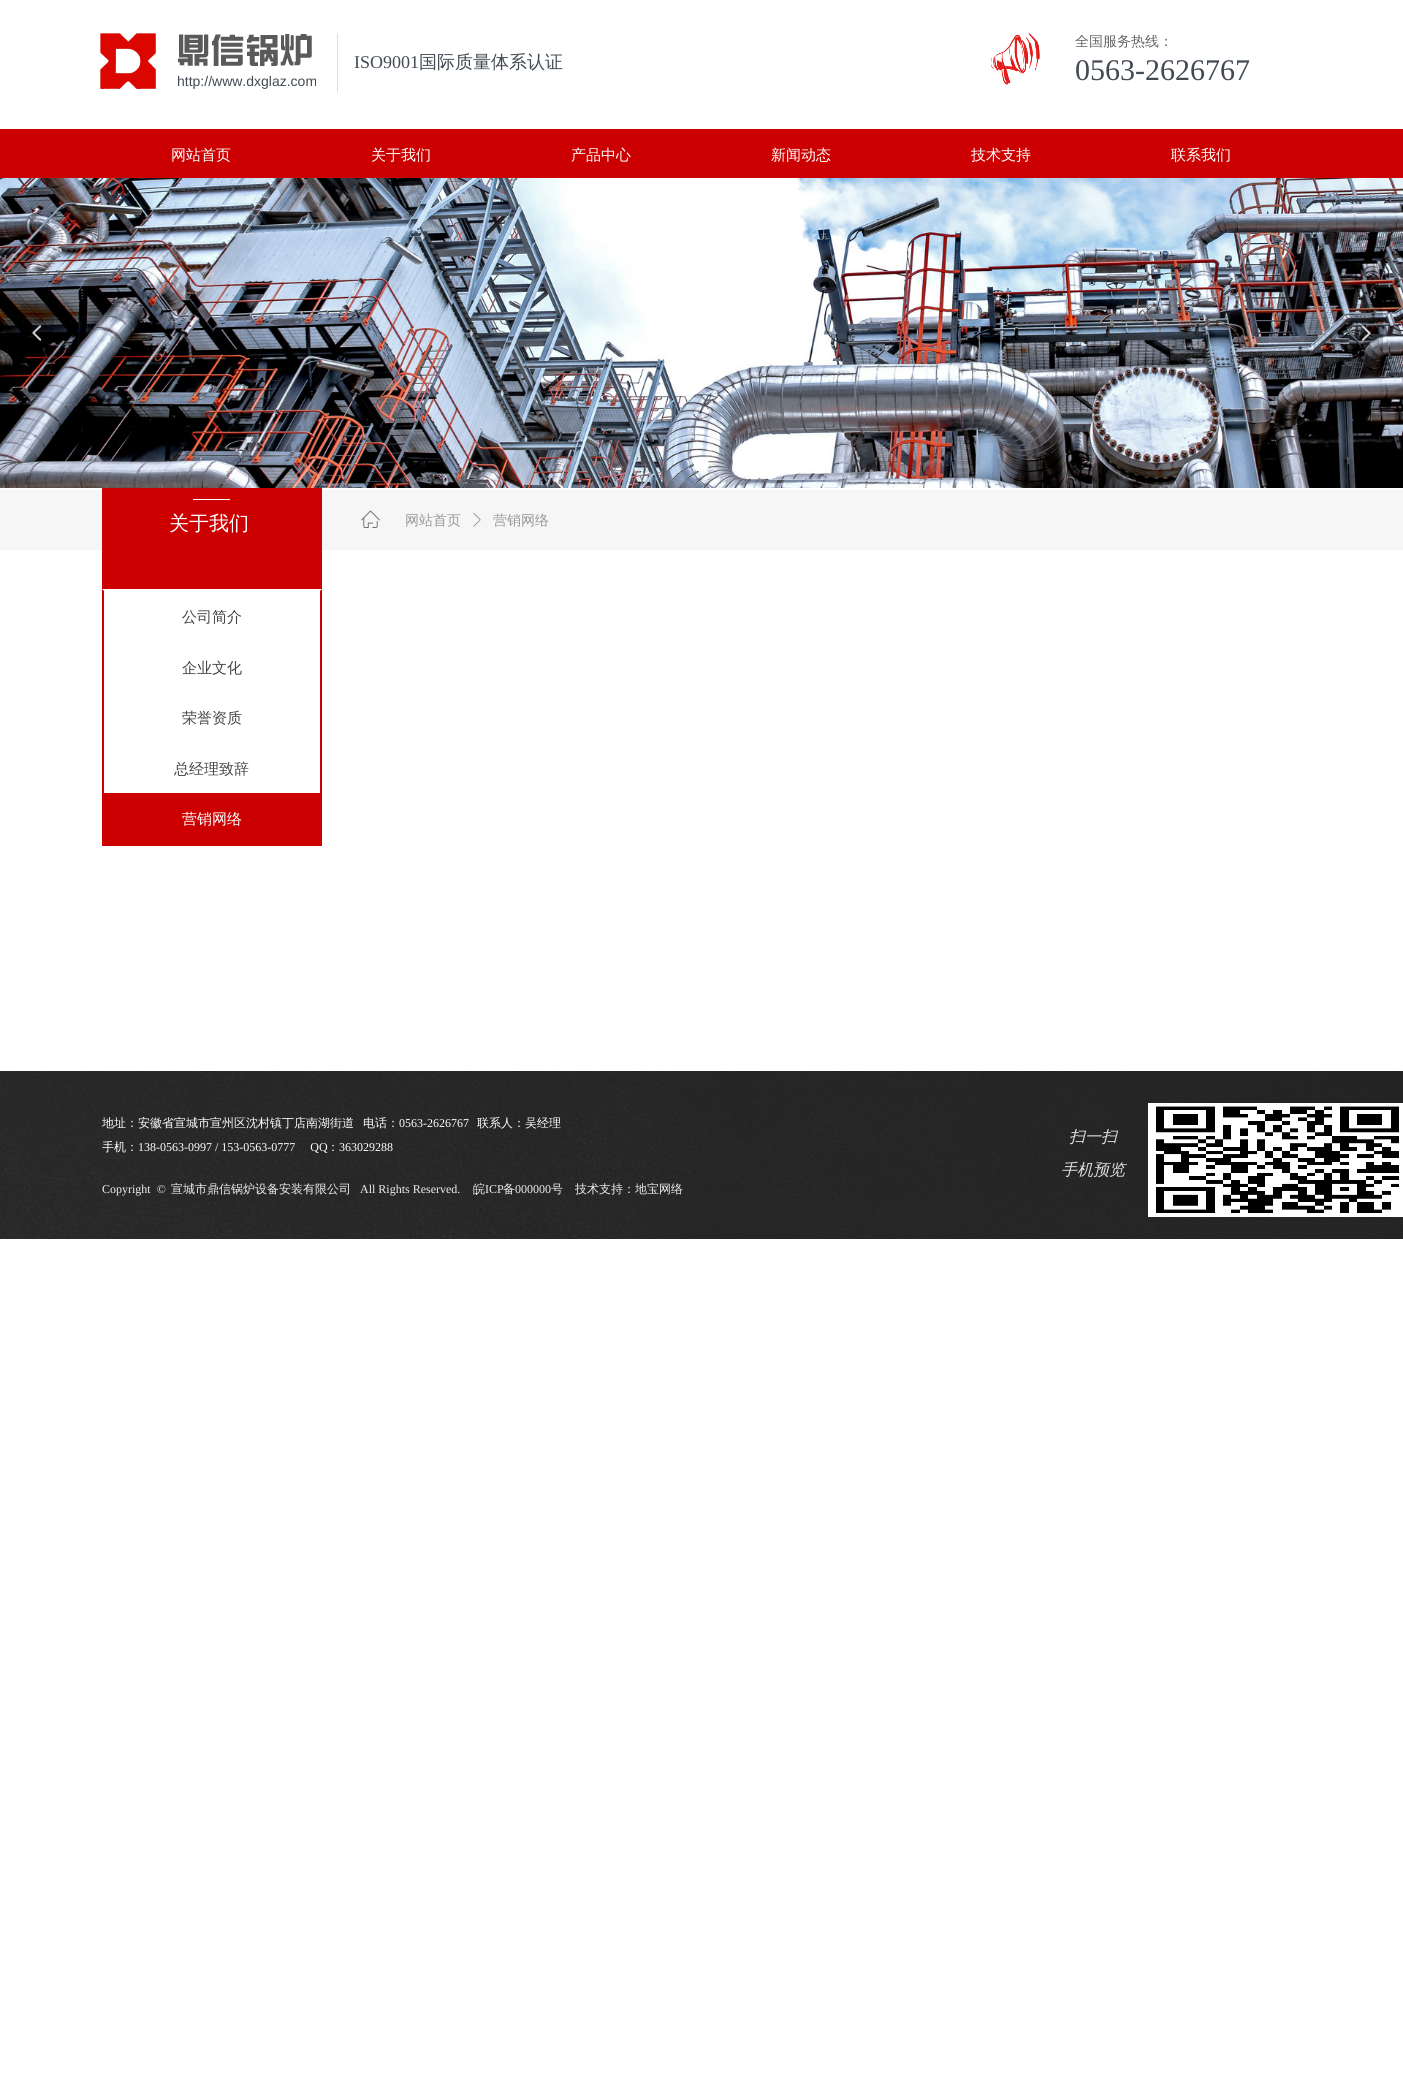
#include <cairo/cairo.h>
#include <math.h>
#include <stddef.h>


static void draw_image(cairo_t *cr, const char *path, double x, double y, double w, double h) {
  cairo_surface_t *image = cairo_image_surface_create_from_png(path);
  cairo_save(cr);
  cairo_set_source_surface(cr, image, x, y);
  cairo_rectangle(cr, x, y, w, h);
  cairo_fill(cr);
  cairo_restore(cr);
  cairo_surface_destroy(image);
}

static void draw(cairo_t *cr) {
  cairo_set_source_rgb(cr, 1, 1, 1);
  cairo_paint(cr);
  draw_image(cr, "images/1.png", 100, 33, 212, 56);
  cairo_set_source_rgb(cr, 221 / 255.0, 221 / 255.0, 221 / 255.0);
  cairo_rectangle(cr, 337, 33, 1, 59);
  cairo_fill(cr);
  draw_image(cr, "images/2.png", 990, 32, 50, 53);
  cairo_set_source_rgb(cr, 204 / 255.0, 0, 0);
  cairo_rectangle(cr, 0, 129, 1403, 49);
  cairo_fill(cr);
  draw_image(cr, "images/3.png", 0, 178, 1403, 310);
  cairo_set_source_rgba(cr, 0, 0, 0, 0.2);
  cairo_rectangle(cr, 20, 304, 34, 58);
  cairo_fill(cr);
  draw_image(cr, "images/4.png", 32, 325, 10, 16);
  cairo_rectangle(cr, 1349, 304, 34, 58);
  cairo_fill(cr);
  draw_image(cr, "images/5.png", 1361, 325, 10, 16);
  cairo_set_source_rgb(cr, 1, 1, 1);
  cairo_arc(cr, 701.5, 464.5, 7.5, 0, 2 * M_PI);
  cairo_fill(cr);
  cairo_set_source_rgb(cr, 246 / 255.0, 246 / 255.0, 246 / 255.0);
  cairo_rectangle(cr, 0, 490, 1403, 60);
  cairo_fill(cr);
  cairo_set_source_rgb(cr, 204 / 255.0, 0, 0);
  cairo_rectangle(cr, 102, 488, 220, 101);
  cairo_fill(cr);
  cairo_set_source_rgb(cr, 1, 1, 1);
  cairo_rectangle(cr, 193, 499, 37, 1);
  cairo_fill(cr);
  draw_image(cr, "images/6.png", 361, 510, 19, 18);
  draw_image(cr, "images/7.png", 473, 512, 8, 15);
  cairo_set_source_rgb(cr, 204 / 255.0, 0, 0);
  cairo_new_path(cr);
  cairo_move_to(cr, 322, 589);
  cairo_line_to(cr, 322, 846);
  cairo_line_to(cr, 320, 844);
  cairo_line_to(cr, 320, 591);
  cairo_close_path(cr);
  cairo_fill(cr);
  cairo_rectangle(cr, 102, 844, 220, 2);
  cairo_fill(cr);
  cairo_new_path(cr);
  cairo_move_to(cr, 102, 846);
  cairo_line_to(cr, 102, 589);
  cairo_line_to(cr, 104, 591);
  cairo_line_to(cr, 104, 844);
  cairo_close_path(cr);
  cairo_fill(cr);
  cairo_rectangle(cr, 104, 793, 216, 51);
  cairo_fill(cr);
  draw_image(cr, "images/8.png", 0, 1071, 1403, 168);
  draw_image(cr, "images/9.png", 1148, 1103, 255, 114);
  cairo_save(cr);
  cairo_rectangle(cr, 1075, 35, 141, 24);
  cairo_clip(cr);
  cairo_select_font_face(cr, "WenQuanYi Zen Hei Medium", CAIRO_FONT_SLANT_NORMAL, CAIRO_FONT_WEIGHT_NORMAL);
  cairo_set_font_size(cr, 14);
  cairo_set_source_rgb(cr, 102 / 255.0, 102 / 255.0, 102 / 255.0);
  cairo_move_to(cr, 1075, 46);
  cairo_show_text(cr, "全国服务热线：");
  cairo_restore(cr);
  cairo_select_font_face(cr, "Liberation Sans", CAIRO_FONT_SLANT_NORMAL, CAIRO_FONT_WEIGHT_NORMAL);
  cairo_set_font_size(cr, 14);
  cairo_set_source_rgb(cr, 67 / 255.0, 74 / 255.0, 84 / 255.0);
  cairo_move_to(cr, 177, 86);
  cairo_show_text(cr, "http://www.dxglaz.com");
  cairo_select_font_face(cr, "Liberation Serif", CAIRO_FONT_SLANT_NORMAL, CAIRO_FONT_WEIGHT_NORMAL);
  cairo_set_font_size(cr, 18);
  cairo_move_to(cr, 354, 68);
  cairo_show_text(cr, "ISO9001");
  cairo_select_font_face(cr, "WenQuanYi Zen Hei Medium", CAIRO_FONT_SLANT_NORMAL, CAIRO_FONT_WEIGHT_NORMAL);
  cairo_move_to(cr, 419, 68);
  cairo_show_text(cr, "国际质量体系认证");
  cairo_select_font_face(cr, "Liberation Serif", CAIRO_FONT_SLANT_NORMAL, CAIRO_FONT_WEIGHT_NORMAL);
  cairo_set_font_size(cr, 30);
  cairo_move_to(cr, 1075, 80);
  cairo_show_text(cr, "0563-2626767");
  cairo_select_font_face(cr, "WenQuanYi Zen Hei Medium", CAIRO_FONT_SLANT_NORMAL, CAIRO_FONT_WEIGHT_NORMAL);
  cairo_set_font_size(cr, 15);
  cairo_set_source_rgb(cr, 1, 1, 1);
  cairo_move_to(cr, 171, 160);
  cairo_show_text(cr, "网站首页");
  cairo_move_to(cr, 371, 160);
  cairo_show_text(cr, "关于我们");
  cairo_move_to(cr, 571, 160);
  cairo_show_text(cr, "产品中心");
  cairo_move_to(cr, 771, 160);
  cairo_show_text(cr, "新闻动态");
  cairo_move_to(cr, 971, 160);
  cairo_show_text(cr, "技术支持");
  cairo_move_to(cr, 1171, 160);
  cairo_show_text(cr, "联系我们");
  cairo_set_font_size(cr, 20);
  cairo_move_to(cr, 169, 530);
  cairo_show_text(cr, "关于我们");
  cairo_set_font_size(cr, 14);
  cairo_set_source_rgb(cr, 153 / 255.0, 153 / 255.0, 153 / 255.0);
  cairo_move_to(cr, 405, 525);
  cairo_show_text(cr, "网站首页");
  cairo_move_to(cr, 493, 525);
  cairo_show_text(cr, "营销网络");
  cairo_set_font_size(cr, 15);
  cairo_set_source_rgb(cr, 68 / 255.0, 68 / 255.0, 68 / 255.0);
  cairo_move_to(cr, 182, 622);
  cairo_show_text(cr, "公司简介");
  cairo_move_to(cr, 182, 673);
  cairo_show_text(cr, "企业文化");
  cairo_move_to(cr, 182, 723);
  cairo_show_text(cr, "荣誉资质");
  cairo_move_to(cr, 174, 774);
  cairo_show_text(cr, "总经理致辞");
  cairo_set_source_rgb(cr, 1, 1, 1);
  cairo_move_to(cr, 182, 824);
  cairo_show_text(cr, "营销网络");
  cairo_save(cr);
  cairo_rectangle(cr, 102, 1111, 770, 59);
  cairo_clip(cr);
  cairo_set_font_size(cr, 12);
  cairo_move_to(cr, 102, 1127);
  cairo_show_text(cr, "地址：安徽省宣城市宣州区沈村镇丁店南湖街道");
  cairo_restore(cr);
  cairo_set_font_size(cr, 12);
  cairo_move_to(cr, 363, 1127);
  cairo_show_text(cr, "电话：");
  cairo_select_font_face(cr, "Liberation Serif", CAIRO_FONT_SLANT_NORMAL, CAIRO_FONT_WEIGHT_NORMAL);
  cairo_move_to(cr, 399, 1127);
  cairo_show_text(cr, "0563-2626767");
  cairo_select_font_face(cr, "WenQuanYi Zen Hei Medium", CAIRO_FONT_SLANT_NORMAL, CAIRO_FONT_WEIGHT_NORMAL);
  cairo_move_to(cr, 477, 1127);
  cairo_show_text(cr, "联系人：吴经理");
  cairo_move_to(cr, 102, 1151);
  cairo_show_text(cr, "手机：");
  cairo_select_font_face(cr, "Liberation Serif", CAIRO_FONT_SLANT_NORMAL, CAIRO_FONT_WEIGHT_NORMAL);
  cairo_move_to(cr, 138, 1151);
  cairo_show_text(cr, "138-0563-0997 / 153-0563-0777     QQ");
  cairo_select_font_face(cr, "WenQuanYi Zen Hei Medium", CAIRO_FONT_SLANT_NORMAL, CAIRO_FONT_WEIGHT_NORMAL);
  cairo_move_to(cr, 327, 1151);
  cairo_show_text(cr, "：");
  cairo_select_font_face(cr, "Liberation Serif", CAIRO_FONT_SLANT_NORMAL, CAIRO_FONT_WEIGHT_NORMAL);
  cairo_move_to(cr, 339, 1151);
  cairo_show_text(cr, "363029288");
  cairo_select_font_face(cr, "WenQuanYi Zen Hei Medium", CAIRO_FONT_SLANT_ITALIC, CAIRO_FONT_WEIGHT_NORMAL);
  cairo_set_font_size(cr, 16);
  cairo_set_source_rgb(cr, 221 / 255.0, 221 / 255.0, 221 / 255.0);
  cairo_move_to(cr, 1069, 1142);
  cairo_show_text(cr, "扫一扫");
  cairo_move_to(cr, 1061, 1175);
  cairo_show_text(cr, "手机预览");
  cairo_select_font_face(cr, "Liberation Serif", CAIRO_FONT_SLANT_NORMAL, CAIRO_FONT_WEIGHT_NORMAL);
  cairo_set_font_size(cr, 12);
  cairo_set_source_rgb(cr, 238 / 255.0, 238 / 255.0, 238 / 255.0);
  cairo_move_to(cr, 102, 1193);
  cairo_show_text(cr, "Copyright  ©");
  cairo_select_font_face(cr, "WenQuanYi Zen Hei Medium", CAIRO_FONT_SLANT_NORMAL, CAIRO_FONT_WEIGHT_NORMAL);
  cairo_move_to(cr, 171, 1193);
  cairo_show_text(cr, "宣城市鼎信锅炉设备安装有限公司");
  cairo_select_font_face(cr, "Liberation Serif", CAIRO_FONT_SLANT_NORMAL, CAIRO_FONT_WEIGHT_NORMAL);
  cairo_move_to(cr, 360, 1193);
  cairo_show_text(cr, "All Rights Reserved.");
  cairo_select_font_face(cr, "WenQuanYi Zen Hei Medium", CAIRO_FONT_SLANT_NORMAL, CAIRO_FONT_WEIGHT_NORMAL);
  cairo_move_to(cr, 473, 1193);
  cairo_show_text(cr, "皖");
  cairo_select_font_face(cr, "Liberation Serif", CAIRO_FONT_SLANT_NORMAL, CAIRO_FONT_WEIGHT_NORMAL);
  cairo_move_to(cr, 485, 1193);
  cairo_show_text(cr, "ICP");
  cairo_select_font_face(cr, "WenQuanYi Zen Hei Medium", CAIRO_FONT_SLANT_NORMAL, CAIRO_FONT_WEIGHT_NORMAL);
  cairo_move_to(cr, 503, 1193);
  cairo_show_text(cr, "备");
  cairo_select_font_face(cr, "Liberation Serif", CAIRO_FONT_SLANT_NORMAL, CAIRO_FONT_WEIGHT_NORMAL);
  cairo_move_to(cr, 515, 1193);
  cairo_show_text(cr, "000000");
  cairo_select_font_face(cr, "WenQuanYi Zen Hei Medium", CAIRO_FONT_SLANT_NORMAL, CAIRO_FONT_WEIGHT_NORMAL);
  cairo_move_to(cr, 551, 1193);
  cairo_show_text(cr, "号");
  cairo_move_to(cr, 575, 1193);
  cairo_show_text(cr, "技术支持：地宝网络");
}

int main(void) {
  cairo_surface_t *surface = cairo_image_surface_create(CAIRO_FORMAT_RGB24, 1403, 2091);
  cairo_t *cr = cairo_create(surface);
  cairo_font_options_t *options = cairo_font_options_create();
  cairo_font_options_set_hint_metrics(options, CAIRO_HINT_METRICS_OFF);
  cairo_font_options_set_hint_style(options, CAIRO_HINT_STYLE_NONE);
  cairo_set_font_options(cr, options);
  cairo_set_miter_limit(cr, 4);
  draw(cr);
  cairo_surface_write_to_png(surface, "out.png");
  cairo_font_options_destroy(options);
  cairo_destroy(cr);
  cairo_surface_destroy(surface);
  return 0;
}
